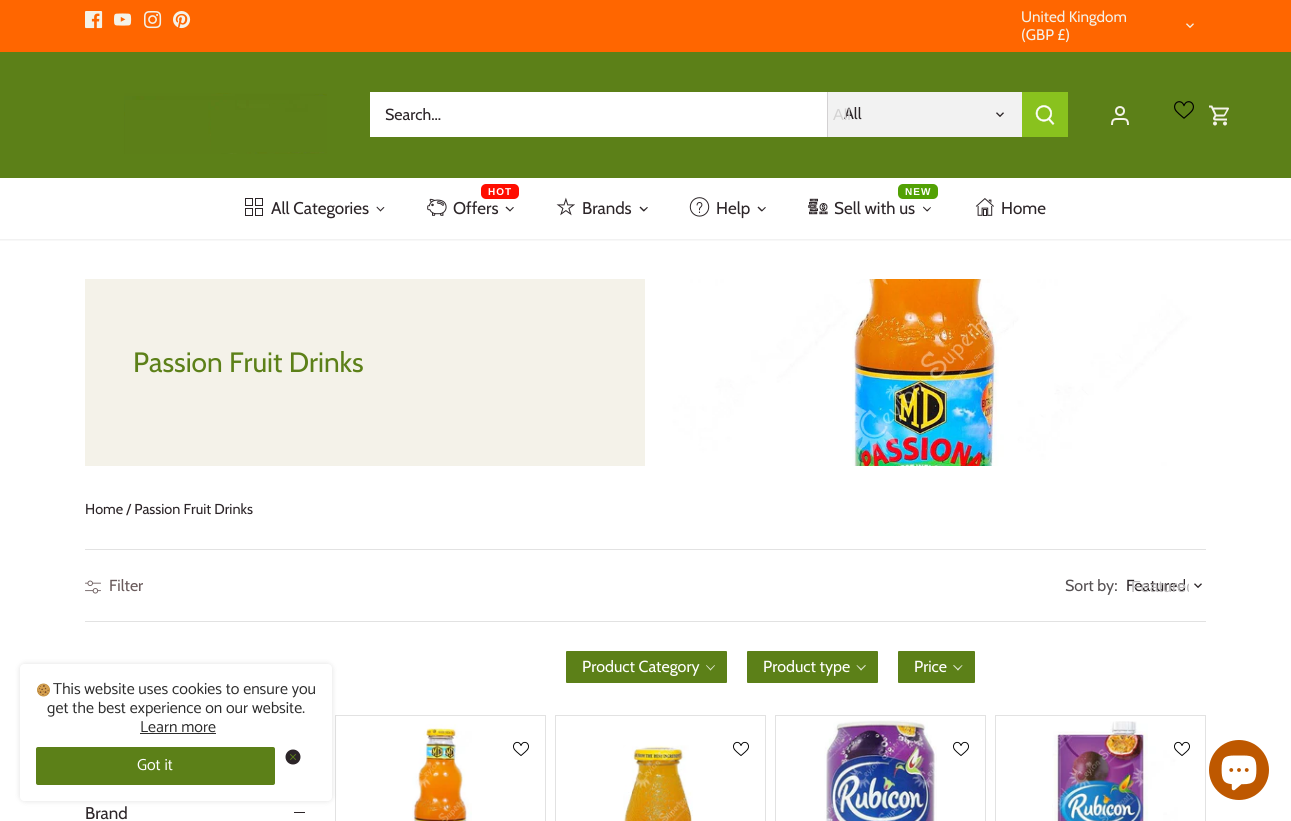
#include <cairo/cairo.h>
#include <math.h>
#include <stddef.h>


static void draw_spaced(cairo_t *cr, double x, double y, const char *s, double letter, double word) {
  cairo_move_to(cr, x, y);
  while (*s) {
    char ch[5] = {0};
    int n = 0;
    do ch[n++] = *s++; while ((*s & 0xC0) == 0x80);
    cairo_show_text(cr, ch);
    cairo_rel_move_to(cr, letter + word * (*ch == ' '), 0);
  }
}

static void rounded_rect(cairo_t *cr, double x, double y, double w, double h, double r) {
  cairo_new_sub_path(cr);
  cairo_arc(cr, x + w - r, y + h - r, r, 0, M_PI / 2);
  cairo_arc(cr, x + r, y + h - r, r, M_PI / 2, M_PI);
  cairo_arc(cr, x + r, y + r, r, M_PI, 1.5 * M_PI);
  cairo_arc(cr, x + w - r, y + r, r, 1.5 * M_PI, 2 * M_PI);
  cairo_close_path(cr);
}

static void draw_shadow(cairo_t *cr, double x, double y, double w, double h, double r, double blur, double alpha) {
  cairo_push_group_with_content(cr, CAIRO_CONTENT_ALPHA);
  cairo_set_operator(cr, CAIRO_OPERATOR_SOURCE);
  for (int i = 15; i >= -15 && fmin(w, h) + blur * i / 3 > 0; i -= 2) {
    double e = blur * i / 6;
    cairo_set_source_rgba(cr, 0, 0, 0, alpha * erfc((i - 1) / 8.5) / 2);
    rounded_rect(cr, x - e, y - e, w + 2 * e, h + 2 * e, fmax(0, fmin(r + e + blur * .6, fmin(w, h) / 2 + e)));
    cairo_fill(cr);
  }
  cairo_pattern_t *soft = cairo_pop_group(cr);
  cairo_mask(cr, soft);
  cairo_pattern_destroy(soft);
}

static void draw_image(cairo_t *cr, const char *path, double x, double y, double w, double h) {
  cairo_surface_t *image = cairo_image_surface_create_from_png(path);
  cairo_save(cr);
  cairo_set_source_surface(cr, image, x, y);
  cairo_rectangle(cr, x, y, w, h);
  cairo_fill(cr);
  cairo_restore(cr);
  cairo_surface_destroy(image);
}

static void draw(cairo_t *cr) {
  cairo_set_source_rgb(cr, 1, 1, 1);
  cairo_paint(cr);
  cairo_save(cr);
  cairo_rectangle(cr, 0, 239, 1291, 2);
  cairo_clip(cr);
  cairo_set_source_rgb(cr, 0, 0, 0);
  draw_shadow(cr, -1, 51, 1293, 189, 0, 1.5, 0.08);
  cairo_restore(cr);
  cairo_set_source_rgb(cr, 1, 102 / 255.0, 0);
  cairo_rectangle(cr, 0, 0, 1291, 52);
  cairo_fill(cr);
  draw_image(cr, "images/1.png", 85, 11, 18, 18);
  draw_image(cr, "images/2.png", 114, 13, 18, 13);
  draw_image(cr, "images/3.png", 144, 11, 18, 18);
  draw_image(cr, "images/4.png", 173, 11, 18, 18);
  draw_image(cr, "images/5.png", 1186, 23, 8, 5);
  cairo_set_source_rgb(cr, 92 / 255.0, 128 / 255.0, 24 / 255.0);
  cairo_rectangle(cr, 0, 52, 1291, 126);
  cairo_fill(cr);
  draw_image(cr, "images/6.png", 124, 93, 203, 61);
  cairo_set_source_rgb(cr, 1, 1, 1);
  cairo_rectangle(cr, 370, 92, 457, 45);
  cairo_fill(cr);
  cairo_set_source_rgb(cr, 242 / 255.0, 242 / 255.0, 242 / 255.0);
  cairo_rectangle(cr, 828, 92, 194, 45);
  cairo_fill(cr);
  cairo_set_source_rgb(cr, 211 / 255.0, 209 / 255.0, 210 / 255.0);
  cairo_rectangle(cr, 827, 92, 1, 45);
  cairo_fill(cr);
  draw_image(cr, "images/7.png", 996, 112, 8, 5);
  cairo_set_source_rgb(cr, 137 / 255.0, 194 / 255.0, 30 / 255.0);
  cairo_rectangle(cr, 1022, 92, 46, 45);
  cairo_fill(cr);
  draw_image(cr, "images/8.png", 1035, 105, 20, 20);
  cairo_arc(cr, 1120, 111, 4, 0, 2 * M_PI);
  cairo_set_source_rgb(cr, 244 / 255.0, 242 / 255.0, 233 / 255.0);
  cairo_stroke(cr);
  cairo_new_path(cr);
  cairo_move_to(cr, 1128, 125);
  cairo_curve_to(cr, 1128, 118.5, 1125.5, 119, 1120, 119);
  cairo_curve_to(cr, 1114.5, 119, 1112, 118.5, 1112, 125);
  cairo_stroke(cr);
  draw_image(cr, "images/9.png", 1174, 101, 20, 18);
  draw_image(cr, "images/10.png", 1209, 105, 20, 21);
  cairo_rectangle(cr, 245.5, 198.5, 7, 7);
  cairo_set_source_rgb(cr, 44 / 255.0, 37 / 255.0, 40 / 255.0);
  cairo_set_line_width(cr, 1);
  cairo_stroke(cr);
  cairo_rectangle(cr, 255.5, 198.5, 7, 7);
  cairo_stroke(cr);
  cairo_rectangle(cr, 245.5, 208.5, 7, 7);
  cairo_stroke(cr);
  cairo_rectangle(cr, 255.5, 208.5, 7, 7);
  cairo_stroke(cr);
  cairo_new_path(cr);
  cairo_move_to(cr, 383.5, 207);
  cairo_line_to(cr, 384.5, 207.5);
  cairo_line_to(cr, 380.5, 211.5);
  cairo_line_to(cr, 380, 210.5);
  cairo_close_path(cr);
  cairo_fill(cr);
  cairo_new_path(cr);
  cairo_move_to(cr, 377, 206.5);
  cairo_line_to(cr, 381, 210.5);
  cairo_line_to(cr, 380.5, 211.5);
  cairo_line_to(cr, 376.5, 207.5);
  cairo_close_path(cr);
  cairo_fill(cr);
  cairo_set_source_rgb(cr, 1, 13 / 255.0, 0);
  rounded_rect(cr, 481, 184, 38, 15, 5);
  cairo_fill(cr);
  draw_image(cr, "images/11.png", 427, 198, 20, 18);
  cairo_set_source_rgb(cr, 44 / 255.0, 37 / 255.0, 40 / 255.0);
  cairo_new_path(cr);
  cairo_move_to(cr, 513, 207);
  cairo_line_to(cr, 514, 207.5);
  cairo_line_to(cr, 510, 211.5);
  cairo_line_to(cr, 509.5, 210.5);
  cairo_close_path(cr);
  cairo_fill(cr);
  cairo_new_path(cr);
  cairo_move_to(cr, 506.5, 206.5);
  cairo_line_to(cr, 510.5, 210.5);
  cairo_line_to(cr, 510, 211.5);
  cairo_line_to(cr, 505.5, 207.5);
  cairo_close_path(cr);
  cairo_fill(cr);
  draw_image(cr, "images/12.png", 556, 197, 19, 19);
  cairo_new_path(cr);
  cairo_move_to(cr, 647, 207);
  cairo_line_to(cr, 648, 207.5);
  cairo_line_to(cr, 644, 211.5);
  cairo_line_to(cr, 643, 210.5);
  cairo_close_path(cr);
  cairo_fill(cr);
  cairo_new_path(cr);
  cairo_move_to(cr, 640.5, 206.5);
  cairo_line_to(cr, 644.5, 210.5);
  cairo_line_to(cr, 643.5, 211.5);
  cairo_line_to(cr, 639.5, 207.5);
  cairo_close_path(cr);
  cairo_fill(cr);
  draw_image(cr, "images/13.png", 689, 197, 21, 20);
  cairo_new_path(cr);
  cairo_move_to(cr, 765, 207);
  cairo_line_to(cr, 766, 207.5);
  cairo_line_to(cr, 762, 211.5);
  cairo_line_to(cr, 761.5, 210.5);
  cairo_close_path(cr);
  cairo_fill(cr);
  cairo_new_path(cr);
  cairo_move_to(cr, 758.5, 206.5);
  cairo_line_to(cr, 762.5, 210.5);
  cairo_line_to(cr, 761.5, 211.5);
  cairo_line_to(cr, 757.5, 207.5);
  cairo_close_path(cr);
  cairo_fill(cr);
  cairo_set_source_rgb(cr, 82 / 255.0, 161 / 255.0, 4 / 255.0);
  rounded_rect(cr, 898, 184, 40, 15, 5);
  cairo_fill(cr);
  draw_image(cr, "images/14.png", 808, 198, 20, 17);
  cairo_set_source_rgb(cr, 44 / 255.0, 37 / 255.0, 40 / 255.0);
  cairo_new_path(cr);
  cairo_move_to(cr, 930.5, 207);
  cairo_line_to(cr, 931, 207.5);
  cairo_line_to(cr, 927.5, 211.5);
  cairo_line_to(cr, 926.5, 210.5);
  cairo_close_path(cr);
  cairo_fill(cr);
  cairo_new_path(cr);
  cairo_move_to(cr, 923.5, 206.5);
  cairo_line_to(cr, 927.5, 210.5);
  cairo_line_to(cr, 927, 211.5);
  cairo_line_to(cr, 923, 207.5);
  cairo_close_path(cr);
  cairo_fill(cr);
  draw_image(cr, "images/15.png", 975, 198, 19, 18);
  cairo_set_source_rgb(cr, 244 / 255.0, 242 / 255.0, 233 / 255.0);
  cairo_rectangle(cr, 85, 279, 560, 187);
  cairo_fill(cr);
  draw_image(cr, "images/16.png", 645, 279, 561, 187);
  cairo_set_source_rgb(cr, 226 / 255.0, 226 / 255.0, 226 / 255.0);
  cairo_rectangle(cr, 85, 549, 1121, 1);
  cairo_fill(cr);
  cairo_rectangle(cr, 85, 621, 1121, 1);
  cairo_fill(cr);
  draw_image(cr, "images/17.png", 85, 580, 16, 14);
  draw_image(cr, "images/18.png", 1194, 583, 8, 5);
  cairo_set_source_rgb(cr, 92 / 255.0, 128 / 255.0, 24 / 255.0);
  rounded_rect(cr, 566, 651, 161, 32, 1);
  cairo_fill(cr);
  cairo_set_source_rgb(cr, 222 / 255.0, 230 / 255.0, 209 / 255.0);
  cairo_new_path(cr);
  cairo_move_to(cr, 714.5, 665);
  cairo_line_to(cr, 715, 665.5);
  cairo_line_to(cr, 710.5, 670.5);
  cairo_line_to(cr, 710, 669.5);
  cairo_close_path(cr);
  cairo_fill(cr);
  cairo_new_path(cr);
  cairo_move_to(cr, 706.5, 665);
  cairo_line_to(cr, 711, 669.5);
  cairo_line_to(cr, 710.5, 670.5);
  cairo_line_to(cr, 706, 665.5);
  cairo_close_path(cr);
  cairo_fill(cr);
  cairo_set_source_rgb(cr, 92 / 255.0, 128 / 255.0, 24 / 255.0);
  rounded_rect(cr, 747, 651, 131, 32, 1);
  cairo_fill(cr);
  cairo_set_source_rgb(cr, 222 / 255.0, 230 / 255.0, 209 / 255.0);
  cairo_new_path(cr);
  cairo_move_to(cr, 865, 665);
  cairo_line_to(cr, 866, 665.5);
  cairo_line_to(cr, 861, 670.5);
  cairo_line_to(cr, 860.5, 669.5);
  cairo_close_path(cr);
  cairo_fill(cr);
  cairo_new_path(cr);
  cairo_move_to(cr, 857, 665);
  cairo_line_to(cr, 862, 669.5);
  cairo_line_to(cr, 861, 670.5);
  cairo_line_to(cr, 856.5, 665.5);
  cairo_close_path(cr);
  cairo_fill(cr);
  cairo_set_source_rgb(cr, 92 / 255.0, 128 / 255.0, 24 / 255.0);
  rounded_rect(cr, 898, 651, 77, 32, 1);
  cairo_fill(cr);
  cairo_set_source_rgb(cr, 222 / 255.0, 230 / 255.0, 209 / 255.0);
  cairo_new_path(cr);
  cairo_move_to(cr, 962, 665);
  cairo_line_to(cr, 962.5, 665.5);
  cairo_line_to(cr, 958, 670.5);
  cairo_line_to(cr, 957, 669.5);
  cairo_close_path(cr);
  cairo_fill(cr);
  cairo_new_path(cr);
  cairo_move_to(cr, 954, 665);
  cairo_line_to(cr, 958.5, 669.5);
  cairo_line_to(cr, 958, 670.5);
  cairo_line_to(cr, 953, 665.5);
  cairo_close_path(cr);
  cairo_fill(cr);
  cairo_rectangle(cr, 335.5, 715.5, 210, 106);
  cairo_set_source_rgb(cr, 226 / 255.0, 226 / 255.0, 226 / 255.0);
  cairo_stroke(cr);
  draw_image(cr, "images/19.png", 412, 724, 60, 97);
  draw_image(cr, "images/20.png", 513, 741, 16, 15);
  cairo_rectangle(cr, 555.5, 715.5, 210, 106);
  cairo_stroke(cr);
  draw_image(cr, "images/21.png", 623, 745, 70, 76);
  draw_image(cr, "images/20.png", 733, 741, 16, 15);
  cairo_rectangle(cr, 775.5, 715.5, 210, 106);
  cairo_stroke(cr);
  draw_image(cr, "images/22.png", 824, 720, 113, 101);
  draw_image(cr, "images/20.png", 953, 741, 16, 15);
  cairo_rectangle(cr, 995.5, 715.5, 210, 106);
  cairo_stroke(cr);
  draw_image(cr, "images/23.png", 1052, 721, 126, 100);
  cairo_set_source_rgb(cr, 1, 1, 1);
  cairo_new_path(cr);
  cairo_move_to(cr, 1181.5, 736);
  cairo_curve_to(cr, 1189, 736, 1195, 741.5, 1195, 748.5);
  cairo_curve_to(cr, 1195, 755.5, 1189, 761, 1181.5, 761);
  cairo_curve_to(cr, 1174, 761, 1168, 755.5, 1168, 748.5);
  cairo_curve_to(cr, 1168, 741.5, 1174, 736, 1181.5, 736);
  cairo_close_path(cr);
  cairo_fill(cr);
  draw_image(cr, "images/20.png", 1174, 741, 16, 15);
  cairo_set_source_rgb(cr, 44 / 255.0, 37 / 255.0, 40 / 255.0);
  cairo_rectangle(cr, 294, 812, 11, 1);
  cairo_fill(cr);
  cairo_save(cr);
  cairo_set_fill_rule(cr, CAIRO_FILL_RULE_EVEN_ODD);
  cairo_new_path(cr);
  cairo_move_to(cr, 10, 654);
  cairo_line_to(cr, 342, 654);
  cairo_line_to(cr, 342, 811);
  cairo_line_to(cr, 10, 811);
  cairo_close_path(cr);
  cairo_move_to(cr, 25, 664);
  cairo_line_to(cr, 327, 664);
  cairo_curve_to(cr, 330, 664, 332, 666, 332, 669);
  cairo_line_to(cr, 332, 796);
  cairo_curve_to(cr, 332, 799, 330, 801, 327, 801);
  cairo_line_to(cr, 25, 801);
  cairo_curve_to(cr, 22, 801, 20, 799, 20, 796);
  cairo_line_to(cr, 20, 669);
  cairo_curve_to(cr, 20, 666, 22, 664, 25, 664);
  cairo_close_path(cr);
  cairo_clip(cr);
  cairo_set_source_rgb(cr, 0, 0, 0);
  draw_shadow(cr, 20, 664, 312, 137, 5, 3, 0.12);
  cairo_restore(cr);
  draw_image(cr, "images/24.png", 37, 683, 13, 14);
  cairo_set_source_rgb(cr, 45 / 255.0, 45 / 255.0, 45 / 255.0);
  cairo_rectangle(cr, 140, 733, 76, 1);
  cairo_fill(cr);
  cairo_set_source_rgb(cr, 92 / 255.0, 128 / 255.0, 24 / 255.0);
  rounded_rect(cr, 36, 747, 239, 38, 2);
  cairo_fill(cr);
  draw_image(cr, "images/25.png", 285, 749, 16, 16);
  cairo_set_source_rgb(cr, 190 / 255.0, 88 / 255.0, 0);
  cairo_arc(cr, 1239, 770, 30, 0, 2 * M_PI);
  cairo_fill(cr);
  draw_image(cr, "images/26.png", 1221, 755, 36, 36);
  cairo_select_font_face(cr, "Cabin", CAIRO_FONT_SLANT_NORMAL, CAIRO_FONT_WEIGHT_NORMAL);
  cairo_set_font_size(cr, 15.25);
  cairo_set_source_rgb(cr, 244 / 255.0, 242 / 255.0, 233 / 255.0);
  cairo_move_to(cr, 1021, 22);
  cairo_show_text(cr, "United Kingdom");
  cairo_move_to(cr, 1021, 40);
  cairo_show_text(cr, "(GBP £)");
  cairo_set_font_size(cr, 16);
  cairo_set_source_rgb(cr, 44 / 255.0, 37 / 255.0, 40 / 255.0);
  cairo_move_to(cr, 385, 120);
  cairo_show_text(cr, "Search...");
  cairo_move_to(cr, 844, 119);
  cairo_show_text(cr, "All");
  cairo_select_font_face(cr, "Liberation Sans", CAIRO_FONT_SLANT_NORMAL, CAIRO_FONT_WEIGHT_NORMAL);
  cairo_set_source_rgb(cr, 211 / 255.0, 210 / 255.0, 210 / 255.0);
  cairo_move_to(cr, 833, 120);
  cairo_show_text(cr, "All");
  cairo_select_font_face(cr, "Cabin", CAIRO_FONT_SLANT_NORMAL, CAIRO_FONT_WEIGHT_NORMAL);
  cairo_set_font_size(cr, 17);
  cairo_set_source_rgb(cr, 44 / 255.0, 37 / 255.0, 40 / 255.0);
  cairo_move_to(cr, 271, 214);
  cairo_show_text(cr, "All Categories");
  cairo_select_font_face(cr, "Liberation Sans", CAIRO_FONT_SLANT_NORMAL, CAIRO_FONT_WEIGHT_BOLD);
  cairo_set_font_size(cr, 10);
  cairo_set_source_rgb(cr, 1, 1, 1);
  draw_spaced(cr, 488, 195, "HOT", 1, 0);
  cairo_select_font_face(cr, "Cabin", CAIRO_FONT_SLANT_NORMAL, CAIRO_FONT_WEIGHT_NORMAL);
  cairo_set_font_size(cr, 17);
  cairo_set_source_rgb(cr, 44 / 255.0, 37 / 255.0, 40 / 255.0);
  cairo_move_to(cr, 453, 214);
  cairo_show_text(cr, "Offers");
  cairo_move_to(cr, 582, 214);
  cairo_show_text(cr, "Brands");
  cairo_move_to(cr, 716, 214);
  cairo_show_text(cr, "Help");
  cairo_select_font_face(cr, "Liberation Sans", CAIRO_FONT_SLANT_NORMAL, CAIRO_FONT_WEIGHT_BOLD);
  cairo_set_font_size(cr, 10);
  cairo_set_source_rgb(cr, 1, 1, 1);
  draw_spaced(cr, 905, 195, "NEW", 1, 0);
  cairo_select_font_face(cr, "Cabin", CAIRO_FONT_SLANT_NORMAL, CAIRO_FONT_WEIGHT_NORMAL);
  cairo_set_font_size(cr, 17);
  cairo_set_source_rgb(cr, 44 / 255.0, 37 / 255.0, 40 / 255.0);
  cairo_move_to(cr, 834, 214);
  cairo_show_text(cr, "Sell with us");
  cairo_move_to(cr, 1001, 214);
  cairo_show_text(cr, "Home");
  cairo_set_font_size(cr, 28);
  cairo_set_source_rgb(cr, 92 / 255.0, 128 / 255.0, 24 / 255.0);
  cairo_move_to(cr, 133, 372);
  cairo_show_text(cr, "Passion Fruit Drinks");
  cairo_set_font_size(cr, 14.4);
  cairo_set_source_rgb(cr, 44 / 255.0, 37 / 255.0, 40 / 255.0);
  cairo_move_to(cr, 85, 514);
  cairo_show_text(cr, "Home / Passion Fruit Drinks");
  cairo_set_font_size(cr, 16);
  cairo_set_source_rgb(cr, 106 / 255.0, 91 / 255.0, 92 / 255.0);
  cairo_move_to(cr, 109, 591);
  cairo_show_text(cr, "Filter");
  cairo_set_source_rgb(cr, 86 / 255.0, 81 / 255.0, 83 / 255.0);
  cairo_move_to(cr, 1065, 591);
  cairo_show_text(cr, "Sort by:");
  cairo_set_source_rgb(cr, 44 / 255.0, 37 / 255.0, 40 / 255.0);
  cairo_move_to(cr, 1126, 591);
  cairo_show_text(cr, "Featured");
  cairo_save(cr);
  cairo_rectangle(cr, 1131, 577, 58, 19);
  cairo_clip(cr);
  cairo_select_font_face(cr, "Liberation Sans", CAIRO_FONT_SLANT_NORMAL, CAIRO_FONT_WEIGHT_NORMAL);
  cairo_set_source_rgb(cr, 188 / 255.0, 186 / 255.0, 187 / 255.0);
  cairo_move_to(cr, 1131, 592);
  cairo_show_text(cr, "Featured");
  cairo_restore(cr);
  cairo_set_source_rgb(cr, 1, 1, 1);
  cairo_move_to(cr, 582, 672);
  cairo_show_text(cr, "Product Category");
  cairo_move_to(cr, 763, 672);
  cairo_show_text(cr, "Product type");
  cairo_move_to(cr, 914, 672);
  cairo_show_text(cr, "Price");
  cairo_set_font_size(cr, 17);
  cairo_set_source_rgb(cr, 44 / 255.0, 37 / 255.0, 40 / 255.0);
  cairo_move_to(cr, 85, 819);
  cairo_show_text(cr, "Brand");
  cairo_select_font_face(cr, "Catamaran Thin", CAIRO_FONT_SLANT_NORMAL, CAIRO_FONT_WEIGHT_NORMAL);
  cairo_set_font_size(cr, 16);
  cairo_set_source_rgb(cr, 45 / 255.0, 45 / 255.0, 45 / 255.0);
  cairo_move_to(cr, 53, 694);
  cairo_show_text(cr, "This website uses cookies to ensure you");
  cairo_move_to(cr, 47, 713);
  cairo_show_text(cr, "get the best experience on our website.");
  cairo_move_to(cr, 140, 732);
  cairo_show_text(cr, "Learn more");
  cairo_set_source_rgb(cr, 1, 1, 1);
  cairo_move_to(cr, 137, 770);
  cairo_show_text(cr, "Got it");
}

int main(void) {
  cairo_surface_t *surface = cairo_image_surface_create(CAIRO_FORMAT_RGB24, 1291, 821);
  cairo_t *cr = cairo_create(surface);
  cairo_font_options_t *options = cairo_font_options_create();
  cairo_font_options_set_hint_metrics(options, CAIRO_HINT_METRICS_OFF);
  cairo_font_options_set_hint_style(options, CAIRO_HINT_STYLE_NONE);
  cairo_set_font_options(cr, options);
  cairo_set_miter_limit(cr, 4);
  draw(cr);
  cairo_surface_write_to_png(surface, "out.png");
  cairo_font_options_destroy(options);
  cairo_destroy(cr);
  cairo_surface_destroy(surface);
  return 0;
}
